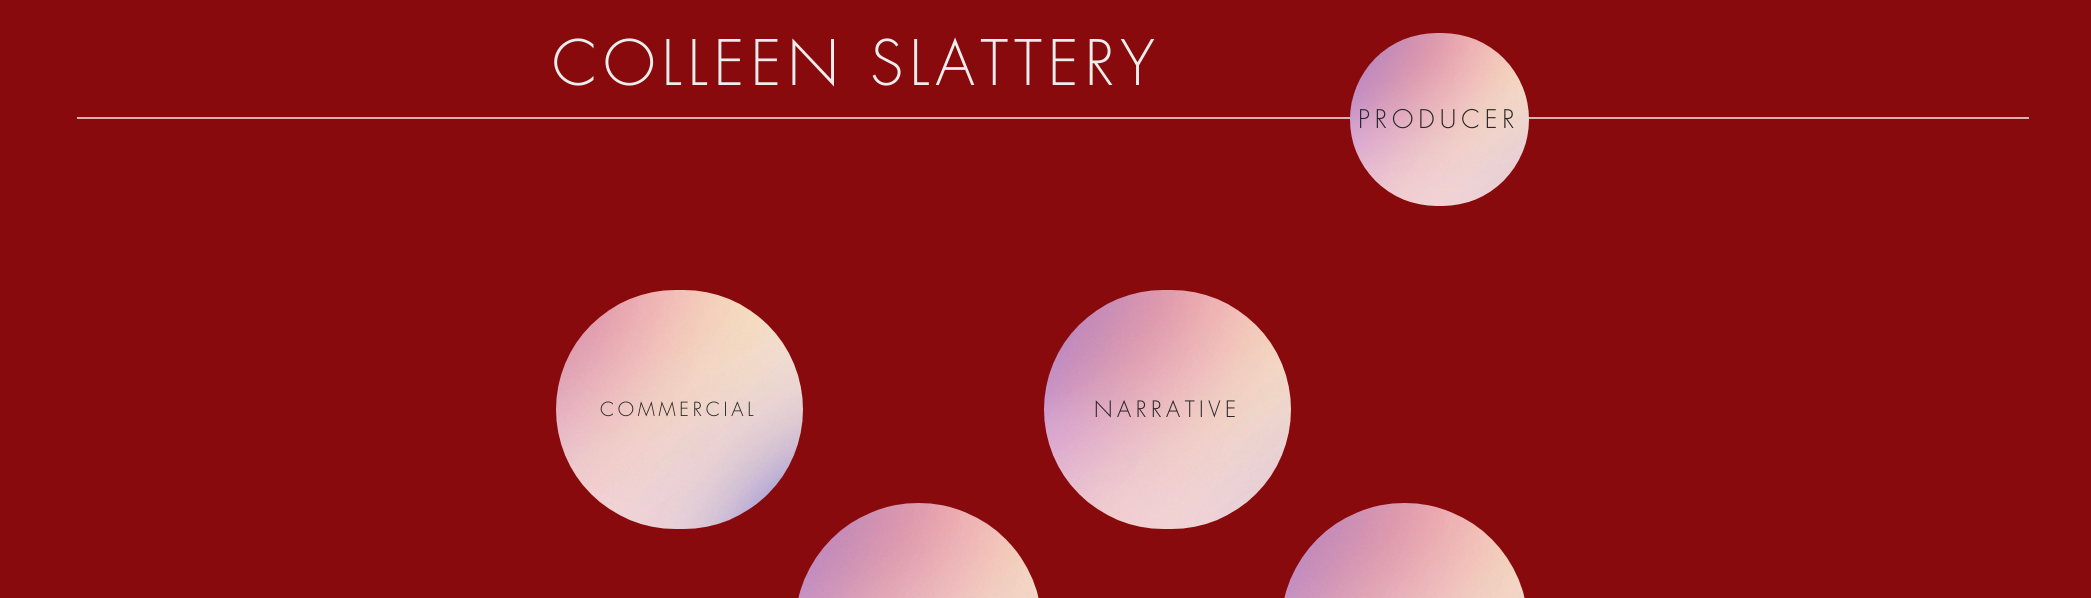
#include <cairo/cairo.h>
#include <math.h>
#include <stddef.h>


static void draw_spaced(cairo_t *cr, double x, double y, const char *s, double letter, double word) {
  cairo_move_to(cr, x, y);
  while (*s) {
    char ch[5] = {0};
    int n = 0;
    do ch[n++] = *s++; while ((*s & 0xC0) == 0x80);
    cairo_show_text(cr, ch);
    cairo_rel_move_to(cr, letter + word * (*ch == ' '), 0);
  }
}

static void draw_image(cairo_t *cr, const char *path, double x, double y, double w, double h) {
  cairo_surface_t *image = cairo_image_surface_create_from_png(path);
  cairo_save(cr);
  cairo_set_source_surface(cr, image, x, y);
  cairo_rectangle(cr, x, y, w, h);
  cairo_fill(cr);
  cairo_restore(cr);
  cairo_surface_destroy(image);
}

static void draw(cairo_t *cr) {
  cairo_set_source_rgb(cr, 136 / 255.0, 10 / 255.0, 12 / 255.0);
  cairo_paint(cr);
  cairo_set_source_rgb(cr, 217 / 255.0, 177 / 255.0, 177 / 255.0);
  cairo_rectangle(cr, 77, 117, 1952, 2);
  cairo_fill(cr);
  draw_image(cr, "images/1.png", 1350, 33, 179, 173);
  draw_image(cr, "images/2.png", 555, 290, 248, 239);
  draw_image(cr, "images/3.png", 1043, 290, 248, 239);
  draw_image(cr, "images/4.png", 798, 503, 241, 95);
  draw_image(cr, "images/5.png", 1284, 503, 241, 95);
  cairo_select_font_face(cr, "futura Light", CAIRO_FONT_SLANT_NORMAL, CAIRO_FONT_WEIGHT_NORMAL);
  cairo_set_font_size(cr, 61);
  cairo_set_source_rgb(cr, 237 / 255.0, 237 / 255.0, 237 / 255.0);
  draw_spaced(cr, 552, 85, "COLLEEN SLATTERY", 6.1, 0);
  cairo_set_font_size(cr, 25);
  cairo_set_source_rgb(cr, 40 / 255.0, 38 / 255.0, 38 / 255.0);
  draw_spaced(cr, 1358, 128, "PRODUCER", 5, 0);
  cairo_set_font_size(cr, 19);
  draw_spaced(cr, 600, 416, "COMMERCIAL", 3.75, 0);
  cairo_set_font_size(cr, 22);
  draw_spaced(cr, 1094, 417, "NARRATIVE", 4.5, 0);
}

int main(void) {
  cairo_surface_t *surface = cairo_image_surface_create(CAIRO_FORMAT_RGB24, 2091, 598);
  cairo_t *cr = cairo_create(surface);
  cairo_font_options_t *options = cairo_font_options_create();
  cairo_font_options_set_hint_metrics(options, CAIRO_HINT_METRICS_OFF);
  cairo_font_options_set_hint_style(options, CAIRO_HINT_STYLE_NONE);
  cairo_set_font_options(cr, options);
  cairo_set_miter_limit(cr, 4);
  draw(cr);
  cairo_surface_write_to_png(surface, "out.png");
  cairo_font_options_destroy(options);
  cairo_destroy(cr);
  cairo_surface_destroy(surface);
  return 0;
}
